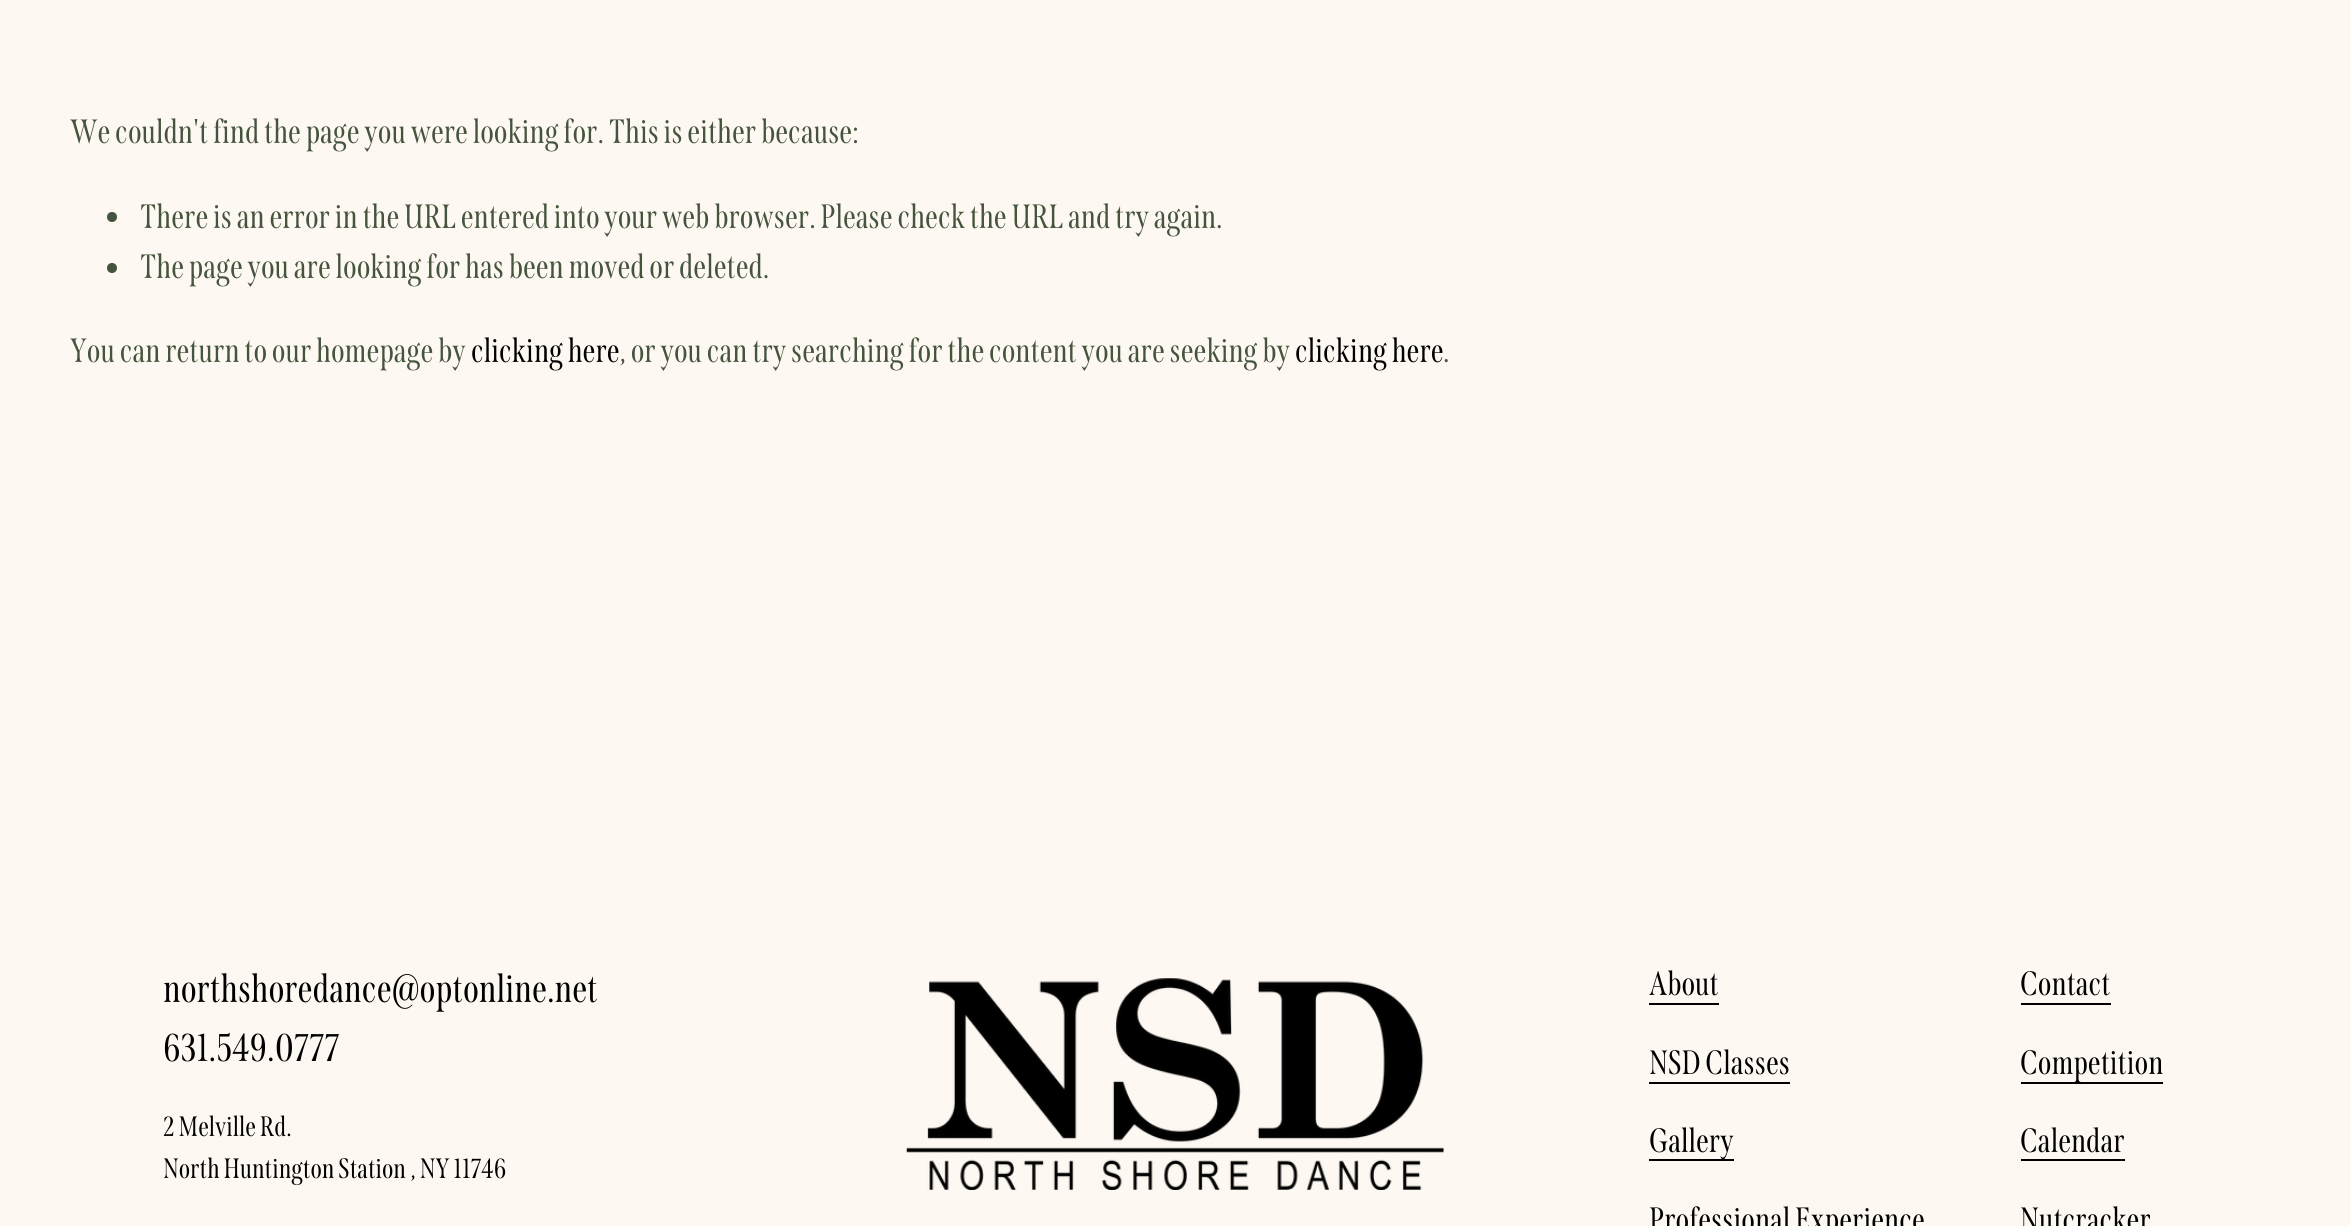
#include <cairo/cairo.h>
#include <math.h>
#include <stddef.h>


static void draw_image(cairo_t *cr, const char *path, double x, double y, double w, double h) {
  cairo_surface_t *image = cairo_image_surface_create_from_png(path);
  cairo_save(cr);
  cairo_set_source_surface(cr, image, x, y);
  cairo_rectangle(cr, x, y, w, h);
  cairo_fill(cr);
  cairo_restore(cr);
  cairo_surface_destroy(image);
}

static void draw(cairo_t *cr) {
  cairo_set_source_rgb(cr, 253 / 255.0, 248 / 255.0, 241 / 255.0);
  cairo_paint(cr);
  cairo_set_source_rgb(cr, 69 / 255.0, 84 / 255.0, 61 / 255.0);
  cairo_arc(cr, 112, 217, 5, 0, 2 * M_PI);
  cairo_fill(cr);
  cairo_arc(cr, 112, 268, 5, 0, 2 * M_PI);
  cairo_fill(cr);
  draw_image(cr, "images/1.png", 906, 978, 538, 212);
  cairo_set_source_rgb(cr, 0, 0, 0);
  cairo_rectangle(cr, 1649, 1003, 70, 2);
  cairo_fill(cr);
  cairo_rectangle(cr, 1649, 1082, 141, 2);
  cairo_fill(cr);
  cairo_rectangle(cr, 1649, 1159, 85, 2);
  cairo_fill(cr);
  cairo_rectangle(cr, 2021, 1003, 90, 2);
  cairo_fill(cr);
  cairo_rectangle(cr, 2021, 1082, 142, 2);
  cairo_fill(cr);
  cairo_rectangle(cr, 2021, 1159, 104, 2);
  cairo_fill(cr);
  cairo_select_font_face(cr, "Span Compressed", CAIRO_FONT_SLANT_NORMAL, CAIRO_FONT_WEIGHT_NORMAL);
  cairo_set_font_size(cr, 33.65);
  cairo_set_source_rgb(cr, 69 / 255.0, 84 / 255.0, 61 / 255.0);
  cairo_move_to(cr, 70, 143);
  cairo_show_text(cr, "We couldn't find the page you were looking for. This is either because:");
  cairo_move_to(cr, 140, 228);
  cairo_show_text(cr, "There is an error in the URL entered into your web browser. Please check the URL and try again.");
  cairo_move_to(cr, 140, 278);
  cairo_show_text(cr, "The page you are looking for has been moved or deleted.");
  cairo_move_to(cr, 70, 362);
  cairo_show_text(cr, "You can return to our homepage by");
  cairo_set_source_rgb(cr, 0, 0, 0);
  cairo_move_to(cr, 471, 362);
  cairo_show_text(cr, "clicking here");
  cairo_set_source_rgb(cr, 69 / 255.0, 84 / 255.0, 61 / 255.0);
  cairo_move_to(cr, 619, 362);
  cairo_show_text(cr, ", or you can try searching for the content you are seeking by");
  cairo_set_source_rgb(cr, 0, 0, 0);
  cairo_move_to(cr, 1295, 362);
  cairo_show_text(cr, "clicking here");
  cairo_set_source_rgb(cr, 69 / 255.0, 84 / 255.0, 61 / 255.0);
  cairo_move_to(cr, 1443, 362);
  cairo_show_text(cr, ".");
  cairo_set_font_size(cr, 39.25);
  cairo_set_source_rgb(cr, 0, 0, 0);
  cairo_move_to(cr, 163, 1002);
  cairo_show_text(cr, "northshoredance@optonline.net");
  cairo_move_to(cr, 163, 1061);
  cairo_show_text(cr, "631.549.0777");
  cairo_set_font_size(cr, 28);
  cairo_move_to(cr, 163, 1136);
  cairo_show_text(cr, "2 Melville Rd.");
  cairo_move_to(cr, 163, 1178);
  cairo_show_text(cr, "North Huntington Station , NY 11746");
  cairo_set_font_size(cr, 33.65);
  cairo_move_to(cr, 1649, 995);
  cairo_show_text(cr, "About");
  cairo_move_to(cr, 1649, 1074);
  cairo_show_text(cr, "NSD Classes");
  cairo_move_to(cr, 1649, 1152);
  cairo_show_text(cr, "Gallery");
  cairo_move_to(cr, 1649, 1231);
  cairo_show_text(cr, "Professional Experience");
  cairo_move_to(cr, 2020, 995);
  cairo_show_text(cr, "Contact");
  cairo_move_to(cr, 2020, 1074);
  cairo_show_text(cr, "Competition");
  cairo_move_to(cr, 2020, 1152);
  cairo_show_text(cr, "Calendar");
  cairo_move_to(cr, 2020, 1231);
  cairo_show_text(cr, "Nutcracker");
}

int main(void) {
  cairo_surface_t *surface = cairo_image_surface_create(CAIRO_FORMAT_RGB24, 2350, 1226);
  cairo_t *cr = cairo_create(surface);
  cairo_font_options_t *options = cairo_font_options_create();
  cairo_font_options_set_hint_metrics(options, CAIRO_HINT_METRICS_OFF);
  cairo_font_options_set_hint_style(options, CAIRO_HINT_STYLE_NONE);
  cairo_set_font_options(cr, options);
  cairo_set_miter_limit(cr, 4);
  draw(cr);
  cairo_surface_write_to_png(surface, "out.png");
  cairo_font_options_destroy(options);
  cairo_destroy(cr);
  cairo_surface_destroy(surface);
  return 0;
}
